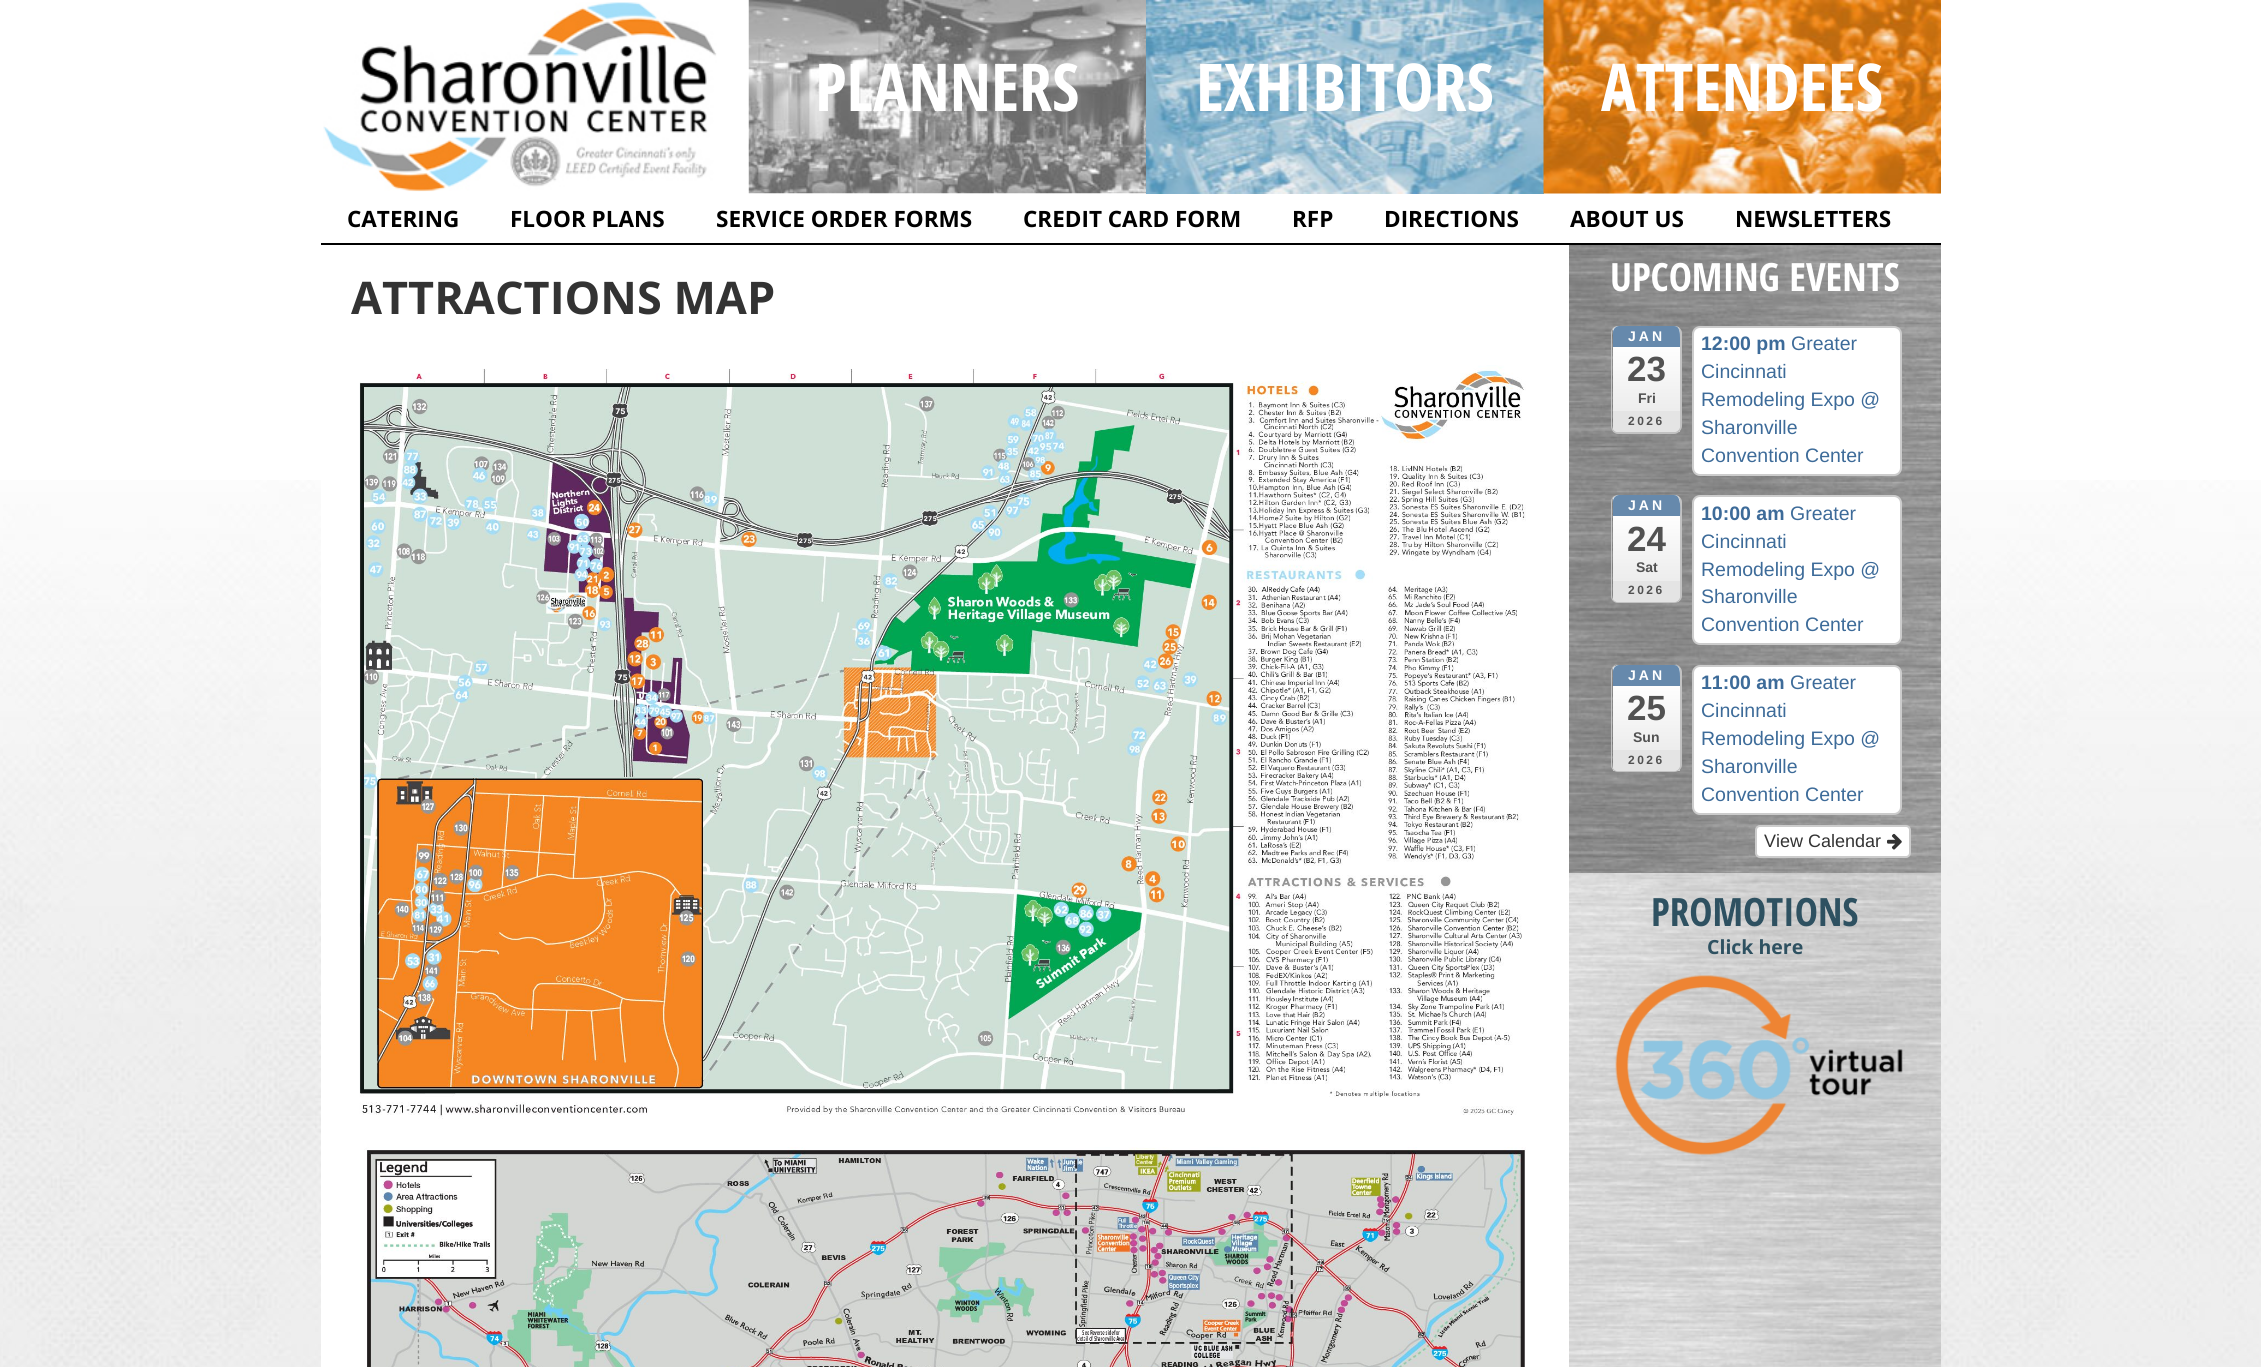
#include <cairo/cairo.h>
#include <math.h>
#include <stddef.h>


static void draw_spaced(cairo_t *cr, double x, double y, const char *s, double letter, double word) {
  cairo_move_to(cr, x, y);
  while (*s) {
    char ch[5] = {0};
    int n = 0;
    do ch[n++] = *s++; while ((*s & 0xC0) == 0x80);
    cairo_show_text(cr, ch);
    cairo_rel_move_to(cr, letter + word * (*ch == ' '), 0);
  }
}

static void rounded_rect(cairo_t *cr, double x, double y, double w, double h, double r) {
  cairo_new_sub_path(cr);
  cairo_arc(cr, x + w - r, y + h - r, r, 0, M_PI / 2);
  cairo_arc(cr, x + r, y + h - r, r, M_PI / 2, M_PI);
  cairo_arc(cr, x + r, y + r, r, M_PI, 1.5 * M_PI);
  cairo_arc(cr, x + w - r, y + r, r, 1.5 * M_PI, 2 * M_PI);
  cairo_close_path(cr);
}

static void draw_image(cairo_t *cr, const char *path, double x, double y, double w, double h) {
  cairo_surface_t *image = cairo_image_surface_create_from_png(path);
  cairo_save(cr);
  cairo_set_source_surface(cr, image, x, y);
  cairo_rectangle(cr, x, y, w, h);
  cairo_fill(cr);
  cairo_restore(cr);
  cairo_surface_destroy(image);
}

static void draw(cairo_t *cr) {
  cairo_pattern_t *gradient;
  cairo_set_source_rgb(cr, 1, 1, 1);
  cairo_paint(cr);
  draw_image(cr, "images/1.png", 0, 480, 2261, 887);
  draw_image(cr, "images/2.png", 323, 2, 394, 190);
  draw_image(cr, "images/3.png", 748, 0, 398, 194);
  draw_image(cr, "images/4.png", 1146, 0, 398, 194);
  draw_image(cr, "images/5.png", 1543, 0, 398, 194);
  cairo_set_source_rgb(cr, 0, 0, 0);
  cairo_rectangle(cr, 321, 243, 1620, 2);
  cairo_fill(cr);
  draw_image(cr, "images/6.png", 1569, 873, 372, 494);
  cairo_set_source_rgb(cr, 1, 1, 1);
  cairo_rectangle(cr, 321, 480, 1248, 887);
  cairo_fill(cr);
  draw_image(cr, "images/7.png", 359, 365, 1167, 754);
  draw_image(cr, "images/8.png", 364, 1147, 1162, 220);
  draw_image(cr, "images/9.png", 1569, 245, 372, 628);
  cairo_save(cr);
  rounded_rect(cr, 1611, 326, 71, 108, 8);
  cairo_clip(cr);
  gradient = cairo_pattern_create_linear(1646, 326, 1646, 432);
  cairo_pattern_add_color_stop_rgba(gradient, 0, 1, 1, 1, 1);
  cairo_pattern_add_color_stop_rgba(gradient, 0.16, 1, 1, 1, 1);
  cairo_pattern_add_color_stop_rgba(gradient, 1, 231 / 255.0, 231 / 255.0, 231 / 255.0, 1);
  cairo_set_source(cr, gradient);
  cairo_pattern_destroy(gradient);
  cairo_rectangle(cr, 1613, 326, 67, 106);
  cairo_fill(cr);
  cairo_restore(cr);
  cairo_set_source_rgb(cr, 194 / 255.0, 194 / 255.0, 194 / 255.0);
  cairo_set_fill_rule(cr, CAIRO_FILL_RULE_EVEN_ODD);
  cairo_new_path(cr);
  cairo_move_to(cr, 1618, 326);
  cairo_line_to(cr, 1674, 326);
  cairo_curve_to(cr, 1678, 326, 1682, 329, 1682, 333);
  cairo_line_to(cr, 1682, 426);
  cairo_curve_to(cr, 1682, 430, 1678, 434, 1674, 434);
  cairo_line_to(cr, 1618, 434);
  cairo_curve_to(cr, 1614, 434, 1611, 430, 1611, 426);
  cairo_line_to(cr, 1611, 333);
  cairo_curve_to(cr, 1611, 329, 1614, 326, 1618, 326);
  cairo_close_path(cr);
  cairo_move_to(cr, 1618, 326);
  cairo_line_to(cr, 1674, 326);
  cairo_curve_to(cr, 1677, 326, 1680, 329, 1680, 333);
  cairo_line_to(cr, 1680, 426);
  cairo_curve_to(cr, 1680, 429, 1677, 432, 1674, 432);
  cairo_line_to(cr, 1618, 432);
  cairo_curve_to(cr, 1615, 432, 1612, 429, 1612, 426);
  cairo_line_to(cr, 1612, 333);
  cairo_curve_to(cr, 1612, 329, 1615, 326, 1618, 326);
  cairo_close_path(cr);
  cairo_fill(cr);
  cairo_set_source_rgb(cr, 102 / 255.0, 137 / 255.0, 172 / 255.0);
  cairo_set_fill_rule(cr, CAIRO_FILL_RULE_WINDING);
  cairo_new_path(cr);
  cairo_move_to(cr, 1619, 326);
  cairo_curve_to(cr, 1616, 326, 1613, 329, 1613, 332);
  cairo_line_to(cr, 1613, 347);
  cairo_line_to(cr, 1680, 347);
  cairo_line_to(cr, 1680, 338);
  cairo_curve_to(cr, 1680, 333, 1680, 326, 1674, 326);
  cairo_close_path(cr);
  cairo_fill(cr);
  cairo_set_source_rgb(cr, 228 / 255.0, 228 / 255.0, 228 / 255.0);
  cairo_new_path(cr);
  cairo_move_to(cr, 1613, 411);
  cairo_line_to(cr, 1613, 428);
  cairo_curve_to(cr, 1614, 431, 1616, 432, 1618, 432);
  cairo_line_to(cr, 1674, 432);
  cairo_curve_to(cr, 1677, 432, 1680, 429, 1680, 426);
  cairo_line_to(cr, 1680, 411);
  cairo_close_path(cr);
  cairo_fill(cr);
  cairo_set_source_rgb(cr, 1, 1, 1);
  rounded_rect(cr, 1693, 327, 208, 148, 7);
  cairo_fill_preserve(cr);
  cairo_set_source_rgb(cr, 204 / 255.0, 204 / 255.0, 204 / 255.0);
  cairo_stroke(cr);
  cairo_save(cr);
  rounded_rect(cr, 1611, 495, 71, 108, 8);
  cairo_clip(cr);
  gradient = cairo_pattern_create_linear(1646, 495, 1646, 602);
  cairo_pattern_add_color_stop_rgba(gradient, 0, 1, 1, 1, 1);
  cairo_pattern_add_color_stop_rgba(gradient, 0.16, 1, 1, 1, 1);
  cairo_pattern_add_color_stop_rgba(gradient, 1, 231 / 255.0, 231 / 255.0, 231 / 255.0, 1);
  cairo_set_source(cr, gradient);
  cairo_pattern_destroy(gradient);
  cairo_rectangle(cr, 1613, 495, 67, 107);
  cairo_fill(cr);
  cairo_restore(cr);
  cairo_set_source_rgb(cr, 194 / 255.0, 194 / 255.0, 194 / 255.0);
  cairo_set_fill_rule(cr, CAIRO_FILL_RULE_EVEN_ODD);
  cairo_new_path(cr);
  cairo_move_to(cr, 1618, 495);
  cairo_line_to(cr, 1674, 495);
  cairo_curve_to(cr, 1678, 495, 1682, 498, 1682, 502);
  cairo_line_to(cr, 1682, 596);
  cairo_curve_to(cr, 1682, 600, 1678, 603, 1674, 603);
  cairo_line_to(cr, 1618, 603);
  cairo_curve_to(cr, 1614, 603, 1611, 600, 1611, 596);
  cairo_line_to(cr, 1611, 502);
  cairo_curve_to(cr, 1611, 498, 1614, 495, 1618, 495);
  cairo_close_path(cr);
  cairo_move_to(cr, 1618, 495);
  cairo_line_to(cr, 1674, 495);
  cairo_curve_to(cr, 1677, 495, 1680, 498, 1680, 502);
  cairo_line_to(cr, 1680, 596);
  cairo_curve_to(cr, 1680, 599, 1677, 602, 1674, 602);
  cairo_line_to(cr, 1618, 602);
  cairo_curve_to(cr, 1615, 602, 1612, 599, 1612, 596);
  cairo_line_to(cr, 1612, 502);
  cairo_curve_to(cr, 1612, 498, 1615, 495, 1618, 495);
  cairo_close_path(cr);
  cairo_fill(cr);
  cairo_set_source_rgb(cr, 102 / 255.0, 137 / 255.0, 172 / 255.0);
  cairo_set_fill_rule(cr, CAIRO_FILL_RULE_WINDING);
  cairo_new_path(cr);
  cairo_move_to(cr, 1619, 495);
  cairo_curve_to(cr, 1616, 495, 1613, 498, 1613, 501);
  cairo_line_to(cr, 1613, 516);
  cairo_line_to(cr, 1680, 516);
  cairo_curve_to(cr, 1680, 511, 1682, 495, 1674, 495);
  cairo_close_path(cr);
  cairo_fill(cr);
  cairo_set_source_rgb(cr, 228 / 255.0, 228 / 255.0, 228 / 255.0);
  cairo_new_path(cr);
  cairo_move_to(cr, 1613, 581);
  cairo_line_to(cr, 1613, 598);
  cairo_curve_to(cr, 1614, 600, 1616, 602, 1618, 602);
  cairo_line_to(cr, 1674, 602);
  cairo_curve_to(cr, 1677, 602, 1680, 599, 1680, 596);
  cairo_line_to(cr, 1680, 581);
  cairo_close_path(cr);
  cairo_fill(cr);
  cairo_set_source_rgb(cr, 1, 1, 1);
  rounded_rect(cr, 1693, 496, 208, 148, 7);
  cairo_fill_preserve(cr);
  cairo_set_source_rgb(cr, 204 / 255.0, 204 / 255.0, 204 / 255.0);
  cairo_stroke(cr);
  cairo_save(cr);
  rounded_rect(cr, 1611, 665, 71, 108, 8);
  cairo_clip(cr);
  gradient = cairo_pattern_create_linear(1646, 665, 1646, 771);
  cairo_pattern_add_color_stop_rgba(gradient, 0, 1, 1, 1, 1);
  cairo_pattern_add_color_stop_rgba(gradient, 0.16, 1, 1, 1, 1);
  cairo_pattern_add_color_stop_rgba(gradient, 1, 231 / 255.0, 231 / 255.0, 231 / 255.0, 1);
  cairo_set_source(cr, gradient);
  cairo_pattern_destroy(gradient);
  cairo_rectangle(cr, 1613, 665, 67, 106);
  cairo_fill(cr);
  cairo_restore(cr);
  cairo_set_source_rgb(cr, 194 / 255.0, 194 / 255.0, 194 / 255.0);
  cairo_set_fill_rule(cr, CAIRO_FILL_RULE_EVEN_ODD);
  cairo_new_path(cr);
  cairo_move_to(cr, 1618, 664);
  cairo_line_to(cr, 1674, 664);
  cairo_curve_to(cr, 1678, 664, 1682, 668, 1682, 672);
  cairo_line_to(cr, 1682, 765);
  cairo_curve_to(cr, 1682, 769, 1678, 772, 1674, 772);
  cairo_line_to(cr, 1618, 772);
  cairo_curve_to(cr, 1614, 772, 1611, 769, 1611, 765);
  cairo_line_to(cr, 1611, 672);
  cairo_curve_to(cr, 1611, 668, 1614, 664, 1618, 664);
  cairo_close_path(cr);
  cairo_move_to(cr, 1618, 664);
  cairo_line_to(cr, 1674, 664);
  cairo_curve_to(cr, 1677, 664, 1680, 668, 1680, 672);
  cairo_line_to(cr, 1680, 765);
  cairo_curve_to(cr, 1680, 768, 1677, 771, 1674, 771);
  cairo_line_to(cr, 1618, 771);
  cairo_curve_to(cr, 1615, 771, 1612, 768, 1612, 765);
  cairo_line_to(cr, 1612, 672);
  cairo_curve_to(cr, 1612, 668, 1615, 664, 1618, 664);
  cairo_close_path(cr);
  cairo_fill(cr);
  cairo_set_source_rgb(cr, 102 / 255.0, 137 / 255.0, 172 / 255.0);
  cairo_set_fill_rule(cr, CAIRO_FILL_RULE_WINDING);
  cairo_new_path(cr);
  cairo_move_to(cr, 1619, 665);
  cairo_curve_to(cr, 1616, 665, 1613, 668, 1613, 671);
  cairo_line_to(cr, 1613, 686);
  cairo_line_to(cr, 1680, 686);
  cairo_line_to(cr, 1680, 677);
  cairo_curve_to(cr, 1680, 672, 1680, 665, 1674, 665);
  cairo_close_path(cr);
  cairo_fill(cr);
  cairo_set_source_rgb(cr, 228 / 255.0, 228 / 255.0, 228 / 255.0);
  cairo_new_path(cr);
  cairo_move_to(cr, 1613, 750);
  cairo_line_to(cr, 1613, 767);
  cairo_curve_to(cr, 1614, 770, 1616, 771, 1618, 771);
  cairo_line_to(cr, 1674, 771);
  cairo_curve_to(cr, 1677, 771, 1680, 768, 1680, 765);
  cairo_line_to(cr, 1680, 750);
  cairo_close_path(cr);
  cairo_fill(cr);
  cairo_set_source_rgb(cr, 1, 1, 1);
  rounded_rect(cr, 1693, 666, 208, 148, 7);
  cairo_fill_preserve(cr);
  cairo_set_source_rgb(cr, 204 / 255.0, 204 / 255.0, 204 / 255.0);
  cairo_stroke(cr);
  cairo_set_source_rgb(cr, 1, 1, 1);
  rounded_rect(cr, 1756, 826, 154, 31, 4);
  cairo_fill_preserve(cr);
  cairo_set_source_rgb(cr, 204 / 255.0, 204 / 255.0, 204 / 255.0);
  cairo_stroke(cr);
  draw_image(cr, "images/10.png", 1887, 833, 15, 17);
  draw_image(cr, "images/11.png", 1615, 975, 288, 180);
  cairo_select_font_face(cr, "Open Sans Condensed", CAIRO_FONT_SLANT_NORMAL, CAIRO_FONT_WEIGHT_BOLD);
  cairo_set_font_size(cr, 66);
  cairo_set_source_rgb(cr, 1, 1, 1);
  cairo_move_to(cr, 815, 111);
  cairo_show_text(cr, "PLANNERS");
  cairo_move_to(cr, 1196, 111);
  cairo_show_text(cr, "EXHIBITORS");
  cairo_move_to(cr, 1601, 111);
  cairo_show_text(cr, "ATTENDEES");
  cairo_select_font_face(cr, "Open Sans", CAIRO_FONT_SLANT_NORMAL, CAIRO_FONT_WEIGHT_BOLD);
  cairo_set_font_size(cr, 22.5);
  cairo_set_source_rgb(cr, 0, 0, 0);
  cairo_move_to(cr, 347, 227);
  cairo_show_text(cr, "CATERING");
  cairo_move_to(cr, 510, 227);
  cairo_show_text(cr, "FLOOR PLANS");
  cairo_move_to(cr, 716, 227);
  cairo_show_text(cr, "SERVICE ORDER FORMS");
  cairo_move_to(cr, 1023, 227);
  cairo_show_text(cr, "CREDIT CARD FORM");
  cairo_move_to(cr, 1292, 227);
  cairo_show_text(cr, "RFP");
  cairo_move_to(cr, 1384, 227);
  cairo_show_text(cr, "DIRECTIONS");
  cairo_move_to(cr, 1570, 227);
  cairo_show_text(cr, "ABOUT US");
  cairo_move_to(cr, 1735, 227);
  cairo_show_text(cr, "NEWSLETTERS");
  cairo_set_font_size(cr, 45);
  cairo_set_source_rgb(cr, 51 / 255.0, 51 / 255.0, 51 / 255.0);
  cairo_move_to(cr, 351, 314);
  cairo_show_text(cr, "ATTRACTIONS MAP");
  cairo_select_font_face(cr, "Open Sans Condensed", CAIRO_FONT_SLANT_NORMAL, CAIRO_FONT_WEIGHT_BOLD);
  cairo_set_font_size(cr, 39);
  cairo_set_source_rgb(cr, 1, 1, 1);
  cairo_move_to(cr, 1610, 291);
  cairo_show_text(cr, "UPCOMING EVENTS");
  cairo_select_font_face(cr, "Liberation Sans", CAIRO_FONT_SLANT_NORMAL, CAIRO_FONT_WEIGHT_BOLD);
  cairo_set_font_size(cr, 14);
  draw_spaced(cr, 1628, 341, "JAN", 3, 0);
  cairo_set_font_size(cr, 35);
  cairo_set_source_rgb(cr, 82 / 255.0, 82 / 255.0, 82 / 255.0);
  cairo_move_to(cr, 1627, 381);
  cairo_show_text(cr, "23");
  cairo_set_font_size(cr, 14);
  cairo_move_to(cr, 1638, 403);
  cairo_show_text(cr, "Fri");
  cairo_set_font_size(cr, 12);
  draw_spaced(cr, 1628, 425, "2026", 2.5, 0);
  cairo_set_font_size(cr, 19.5);
  cairo_set_source_rgb(cr, 61 / 255.0, 107 / 255.0, 153 / 255.0);
  cairo_move_to(cr, 1701, 350);
  cairo_show_text(cr, "12:00 pm");
  cairo_select_font_face(cr, "Liberation Sans", CAIRO_FONT_SLANT_NORMAL, CAIRO_FONT_WEIGHT_NORMAL);
  cairo_move_to(cr, 1791, 350);
  cairo_show_text(cr, "Greater");
  cairo_move_to(cr, 1701, 378);
  cairo_show_text(cr, "Cincinnati");
  cairo_move_to(cr, 1701, 406);
  cairo_show_text(cr, "Remodeling Expo @");
  cairo_move_to(cr, 1701, 434);
  cairo_show_text(cr, "Sharonville");
  cairo_move_to(cr, 1701, 462);
  cairo_show_text(cr, "Convention Center");
  cairo_select_font_face(cr, "Liberation Sans", CAIRO_FONT_SLANT_NORMAL, CAIRO_FONT_WEIGHT_BOLD);
  cairo_set_font_size(cr, 14);
  cairo_set_source_rgb(cr, 1, 1, 1);
  draw_spaced(cr, 1628, 510, "JAN", 3, 0);
  cairo_set_font_size(cr, 35);
  cairo_set_source_rgb(cr, 82 / 255.0, 82 / 255.0, 82 / 255.0);
  cairo_move_to(cr, 1627, 551);
  cairo_show_text(cr, "24");
  cairo_set_font_size(cr, 14);
  cairo_move_to(cr, 1636, 572);
  cairo_show_text(cr, "Sat");
  cairo_set_font_size(cr, 12);
  draw_spaced(cr, 1628, 594, "2026", 2.5, 0);
  cairo_set_font_size(cr, 19.5);
  cairo_set_source_rgb(cr, 61 / 255.0, 107 / 255.0, 153 / 255.0);
  cairo_move_to(cr, 1701, 520);
  cairo_show_text(cr, "10:00 am");
  cairo_select_font_face(cr, "Liberation Sans", CAIRO_FONT_SLANT_NORMAL, CAIRO_FONT_WEIGHT_NORMAL);
  cairo_move_to(cr, 1790, 520);
  cairo_show_text(cr, "Greater");
  cairo_move_to(cr, 1701, 548);
  cairo_show_text(cr, "Cincinnati");
  cairo_move_to(cr, 1701, 576);
  cairo_show_text(cr, "Remodeling Expo @");
  cairo_move_to(cr, 1701, 603);
  cairo_show_text(cr, "Sharonville");
  cairo_move_to(cr, 1701, 631);
  cairo_show_text(cr, "Convention Center");
  cairo_select_font_face(cr, "Liberation Sans", CAIRO_FONT_SLANT_NORMAL, CAIRO_FONT_WEIGHT_BOLD);
  cairo_set_font_size(cr, 14);
  cairo_set_source_rgb(cr, 1, 1, 1);
  draw_spaced(cr, 1628, 680, "JAN", 3, 0);
  cairo_set_font_size(cr, 35);
  cairo_set_source_rgb(cr, 82 / 255.0, 82 / 255.0, 82 / 255.0);
  cairo_move_to(cr, 1627, 720);
  cairo_show_text(cr, "25");
  cairo_set_font_size(cr, 14);
  cairo_move_to(cr, 1633, 742);
  cairo_show_text(cr, "Sun");
  cairo_set_font_size(cr, 12);
  draw_spaced(cr, 1628, 764, "2026", 2.5, 0);
  cairo_set_font_size(cr, 19.5);
  cairo_set_source_rgb(cr, 61 / 255.0, 107 / 255.0, 153 / 255.0);
  cairo_move_to(cr, 1701, 689);
  cairo_show_text(cr, "11:00 am");
  cairo_select_font_face(cr, "Liberation Sans", CAIRO_FONT_SLANT_NORMAL, CAIRO_FONT_WEIGHT_NORMAL);
  cairo_move_to(cr, 1790, 689);
  cairo_show_text(cr, "Greater");
  cairo_move_to(cr, 1701, 717);
  cairo_show_text(cr, "Cincinnati");
  cairo_move_to(cr, 1701, 745);
  cairo_show_text(cr, "Remodeling Expo @");
  cairo_move_to(cr, 1701, 773);
  cairo_show_text(cr, "Sharonville");
  cairo_move_to(cr, 1701, 801);
  cairo_show_text(cr, "Convention Center");
  cairo_set_font_size(cr, 18);
  cairo_set_source_rgb(cr, 51 / 255.0, 51 / 255.0, 51 / 255.0);
  cairo_move_to(cr, 1764, 847);
  cairo_show_text(cr, "View Calendar");
  cairo_select_font_face(cr, "Open Sans Condensed", CAIRO_FONT_SLANT_NORMAL, CAIRO_FONT_WEIGHT_BOLD);
  cairo_set_font_size(cr, 39);
  cairo_set_source_rgb(cr, 46 / 255.0, 81 / 255.0, 97 / 255.0);
  cairo_move_to(cr, 1651, 926);
  cairo_show_text(cr, "PROMOTIONS");
  cairo_select_font_face(cr, "Open Sans", CAIRO_FONT_SLANT_NORMAL, CAIRO_FONT_WEIGHT_BOLD);
  cairo_set_font_size(cr, 19.5);
  cairo_move_to(cr, 1707, 954);
  cairo_show_text(cr, "Click here");
}

int main(void) {
  cairo_surface_t *surface = cairo_image_surface_create(CAIRO_FORMAT_RGB24, 2261, 1367);
  cairo_t *cr = cairo_create(surface);
  cairo_font_options_t *options = cairo_font_options_create();
  cairo_font_options_set_hint_metrics(options, CAIRO_HINT_METRICS_OFF);
  cairo_font_options_set_hint_style(options, CAIRO_HINT_STYLE_NONE);
  cairo_set_font_options(cr, options);
  cairo_set_miter_limit(cr, 4);
  draw(cr);
  cairo_surface_write_to_png(surface, "out.png");
  cairo_font_options_destroy(options);
  cairo_destroy(cr);
  cairo_surface_destroy(surface);
  return 0;
}
